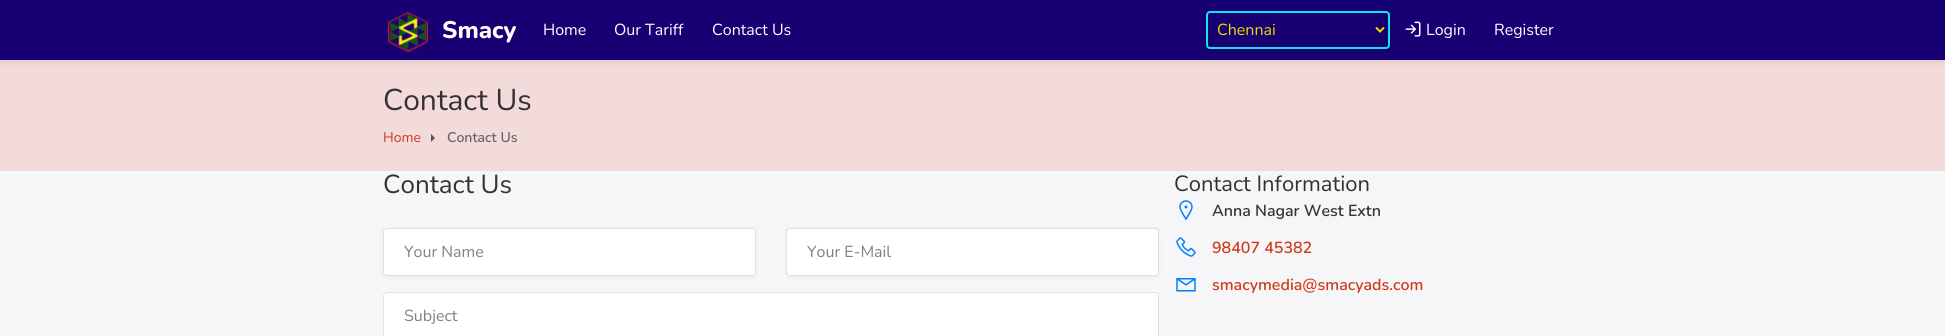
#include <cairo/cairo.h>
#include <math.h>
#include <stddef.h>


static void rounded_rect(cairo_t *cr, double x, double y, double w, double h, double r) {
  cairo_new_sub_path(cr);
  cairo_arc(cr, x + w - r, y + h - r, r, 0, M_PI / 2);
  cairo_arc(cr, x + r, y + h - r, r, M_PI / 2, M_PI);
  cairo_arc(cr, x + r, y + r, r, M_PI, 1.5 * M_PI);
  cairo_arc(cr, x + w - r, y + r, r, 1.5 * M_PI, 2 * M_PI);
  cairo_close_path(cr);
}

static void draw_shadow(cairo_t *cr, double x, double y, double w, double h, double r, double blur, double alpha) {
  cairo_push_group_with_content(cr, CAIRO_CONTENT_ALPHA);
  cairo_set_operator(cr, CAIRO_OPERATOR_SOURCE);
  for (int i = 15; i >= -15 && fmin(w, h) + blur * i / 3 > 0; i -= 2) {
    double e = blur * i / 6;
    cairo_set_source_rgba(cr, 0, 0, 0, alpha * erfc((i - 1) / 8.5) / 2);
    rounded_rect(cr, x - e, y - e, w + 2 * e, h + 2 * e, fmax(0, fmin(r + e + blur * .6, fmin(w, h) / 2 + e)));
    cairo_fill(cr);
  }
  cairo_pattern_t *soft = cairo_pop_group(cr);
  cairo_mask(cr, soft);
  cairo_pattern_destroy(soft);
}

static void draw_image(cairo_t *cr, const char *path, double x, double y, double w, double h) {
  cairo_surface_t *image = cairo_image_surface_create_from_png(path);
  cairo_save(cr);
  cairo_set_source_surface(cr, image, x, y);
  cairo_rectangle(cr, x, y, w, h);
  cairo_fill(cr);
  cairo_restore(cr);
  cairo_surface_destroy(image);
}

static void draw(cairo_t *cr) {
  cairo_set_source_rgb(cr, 246 / 255.0, 246 / 255.0, 248 / 255.0);
  cairo_paint(cr);
  cairo_set_source_rgb(cr, 244 / 255.0, 219 / 255.0, 219 / 255.0);
  cairo_rectangle(cr, 0, 60, 1945, 111);
  cairo_fill(cr);
  cairo_set_source_rgb(cr, 0, 0, 0);
  draw_shadow(cr, 0, 0, 1945, 60, 0, 5, 0.12);
  cairo_set_source_rgb(cr, 23 / 255.0, 0, 114 / 255.0);
  cairo_rectangle(cr, 0, 0, 1945, 60);
  cairo_fill(cr);
  draw_image(cr, "images/1.png", 388, 12, 40, 40);
  cairo_set_source_rgb(cr, 0, 0, 0);
  draw_shadow(cr, 1206, 12, 184, 38, 4, 2, 0.12);
  cairo_set_source_rgb(cr, 23 / 255.0, 0, 114 / 255.0);
  rounded_rect(cr, 1207, 12, 182, 36, 3);
  cairo_fill_preserve(cr);
  cairo_set_source_rgb(cr, 14 / 255.0, 229 / 255.0, 240 / 255.0);
  cairo_stroke(cr);
  cairo_new_path(cr);
  cairo_move_to(cr, 1376, 27.5);
  cairo_line_to(cr, 1380, 31.5);
  cairo_line_to(cr, 1384, 27.5);
  cairo_set_source_rgb(cr, 239 / 255.0, 219 / 255.0, 1 / 255.0);
  cairo_stroke(cr);
  draw_image(cr, "images/2.png", 1405, 21, 16, 16);
  cairo_set_source_rgb(cr, 85 / 255.0, 85 / 255.0, 85 / 255.0);
  cairo_new_path(cr);
  cairo_move_to(cr, 431, 142);
  cairo_line_to(cr, 431, 134);
  cairo_line_to(cr, 435, 138);
  cairo_close_path(cr);
  cairo_fill(cr);
  cairo_set_source_rgb(cr, 0, 0, 0);
  draw_shadow(cr, 383, 229, 373, 48, 4, 2, 0.05);
  cairo_set_source_rgb(cr, 1, 1, 1);
  rounded_rect(cr, 383.5, 228.5, 372, 47, 3.5);
  cairo_fill_preserve(cr);
  cairo_set_source_rgb(cr, 224 / 255.0, 224 / 255.0, 224 / 255.0);
  cairo_set_line_width(cr, 1);
  cairo_stroke(cr);
  cairo_set_source_rgb(cr, 0, 0, 0);
  draw_shadow(cr, 786, 229, 373, 48, 4, 2, 0.05);
  cairo_set_source_rgb(cr, 1, 1, 1);
  rounded_rect(cr, 786.5, 228.5, 372, 47, 3.5);
  cairo_fill_preserve(cr);
  cairo_set_source_rgb(cr, 224 / 255.0, 224 / 255.0, 224 / 255.0);
  cairo_stroke(cr);
  cairo_set_source_rgb(cr, 1, 1, 1);
  rounded_rect(cr, 383.5, 292.5, 775, 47, 3.5);
  cairo_fill_preserve(cr);
  cairo_set_source_rgb(cr, 224 / 255.0, 224 / 255.0, 224 / 255.0);
  cairo_stroke(cr);
  draw_image(cr, "images/3.png", 1179, 200, 14, 21);
  draw_image(cr, "images/4.png", 1176, 237, 20, 20);
  draw_image(cr, "images/5.png", 1176, 278, 20, 14);
  cairo_select_font_face(cr, "Nunito ExtraBold", CAIRO_FONT_SLANT_NORMAL, CAIRO_FONT_WEIGHT_NORMAL);
  cairo_set_font_size(cr, 24);
  cairo_set_source_rgb(cr, 1, 1, 1);
  cairo_move_to(cr, 442, 38);
  cairo_show_text(cr, "Smacy");
  cairo_select_font_face(cr, "Nunito", CAIRO_FONT_SLANT_NORMAL, CAIRO_FONT_WEIGHT_NORMAL);
  cairo_set_font_size(cr, 16);
  cairo_move_to(cr, 543, 35);
  cairo_show_text(cr, "Home");
  cairo_move_to(cr, 614, 35);
  cairo_show_text(cr, "Our Tariff");
  cairo_move_to(cr, 712, 35);
  cairo_show_text(cr, "Contact Us");
  cairo_set_source_rgb(cr, 239 / 255.0, 219 / 255.0, 1 / 255.0);
  cairo_move_to(cr, 1217, 35);
  cairo_show_text(cr, "Chennai");
  cairo_set_source_rgb(cr, 1, 1, 1);
  cairo_move_to(cr, 1426, 35);
  cairo_show_text(cr, "Login");
  cairo_move_to(cr, 1494, 35);
  cairo_show_text(cr, "Register");
  cairo_set_font_size(cr, 30);
  cairo_set_source_rgb(cr, 51 / 255.0, 51 / 255.0, 51 / 255.0);
  cairo_move_to(cr, 383, 110);
  cairo_show_text(cr, "Contact Us");
  cairo_set_font_size(cr, 14);
  cairo_set_source_rgb(cr, 207 / 255.0, 57 / 255.0, 23 / 255.0);
  cairo_move_to(cr, 383, 142);
  cairo_show_text(cr, "Home");
  cairo_select_font_face(cr, "Nunito SemiBold", CAIRO_FONT_SLANT_NORMAL, CAIRO_FONT_WEIGHT_NORMAL);
  cairo_set_source_rgb(cr, 102 / 255.0, 102 / 255.0, 102 / 255.0);
  cairo_move_to(cr, 447, 142);
  cairo_show_text(cr, "Contact Us");
  cairo_select_font_face(cr, "Nunito", CAIRO_FONT_SLANT_NORMAL, CAIRO_FONT_WEIGHT_NORMAL);
  cairo_set_font_size(cr, 26);
  cairo_set_source_rgb(cr, 51 / 255.0, 51 / 255.0, 51 / 255.0);
  cairo_move_to(cr, 383, 193);
  cairo_show_text(cr, "Contact Us");
  cairo_set_font_size(cr, 16);
  cairo_set_source_rgb(cr, 128 / 255.0, 128 / 255.0, 128 / 255.0);
  cairo_move_to(cr, 404, 257);
  cairo_show_text(cr, "Your Name");
  cairo_move_to(cr, 807, 257);
  cairo_show_text(cr, "Your E-Mail");
  cairo_move_to(cr, 404, 321);
  cairo_show_text(cr, "Subject");
  cairo_set_font_size(cr, 22);
  cairo_set_source_rgb(cr, 51 / 255.0, 51 / 255.0, 51 / 255.0);
  cairo_move_to(cr, 1174, 191);
  cairo_show_text(cr, "Contact Information");
  cairo_select_font_face(cr, "Nunito SemiBold", CAIRO_FONT_SLANT_NORMAL, CAIRO_FONT_WEIGHT_NORMAL);
  cairo_set_font_size(cr, 16);
  cairo_move_to(cr, 1212, 216);
  cairo_show_text(cr, "Anna Nagar West Extn");
  cairo_set_source_rgb(cr, 207 / 255.0, 57 / 255.0, 23 / 255.0);
  cairo_move_to(cr, 1212, 253);
  cairo_show_text(cr, "98407 45382");
  cairo_move_to(cr, 1212, 290);
  cairo_show_text(cr, "smacymedia@smacyads.com");
}

int main(void) {
  cairo_surface_t *surface = cairo_image_surface_create(CAIRO_FORMAT_RGB24, 1945, 336);
  cairo_t *cr = cairo_create(surface);
  cairo_font_options_t *options = cairo_font_options_create();
  cairo_font_options_set_hint_metrics(options, CAIRO_HINT_METRICS_OFF);
  cairo_font_options_set_hint_style(options, CAIRO_HINT_STYLE_NONE);
  cairo_set_font_options(cr, options);
  cairo_set_miter_limit(cr, 4);
  draw(cr);
  cairo_surface_write_to_png(surface, "out.png");
  cairo_font_options_destroy(options);
  cairo_destroy(cr);
  cairo_surface_destroy(surface);
  return 0;
}
